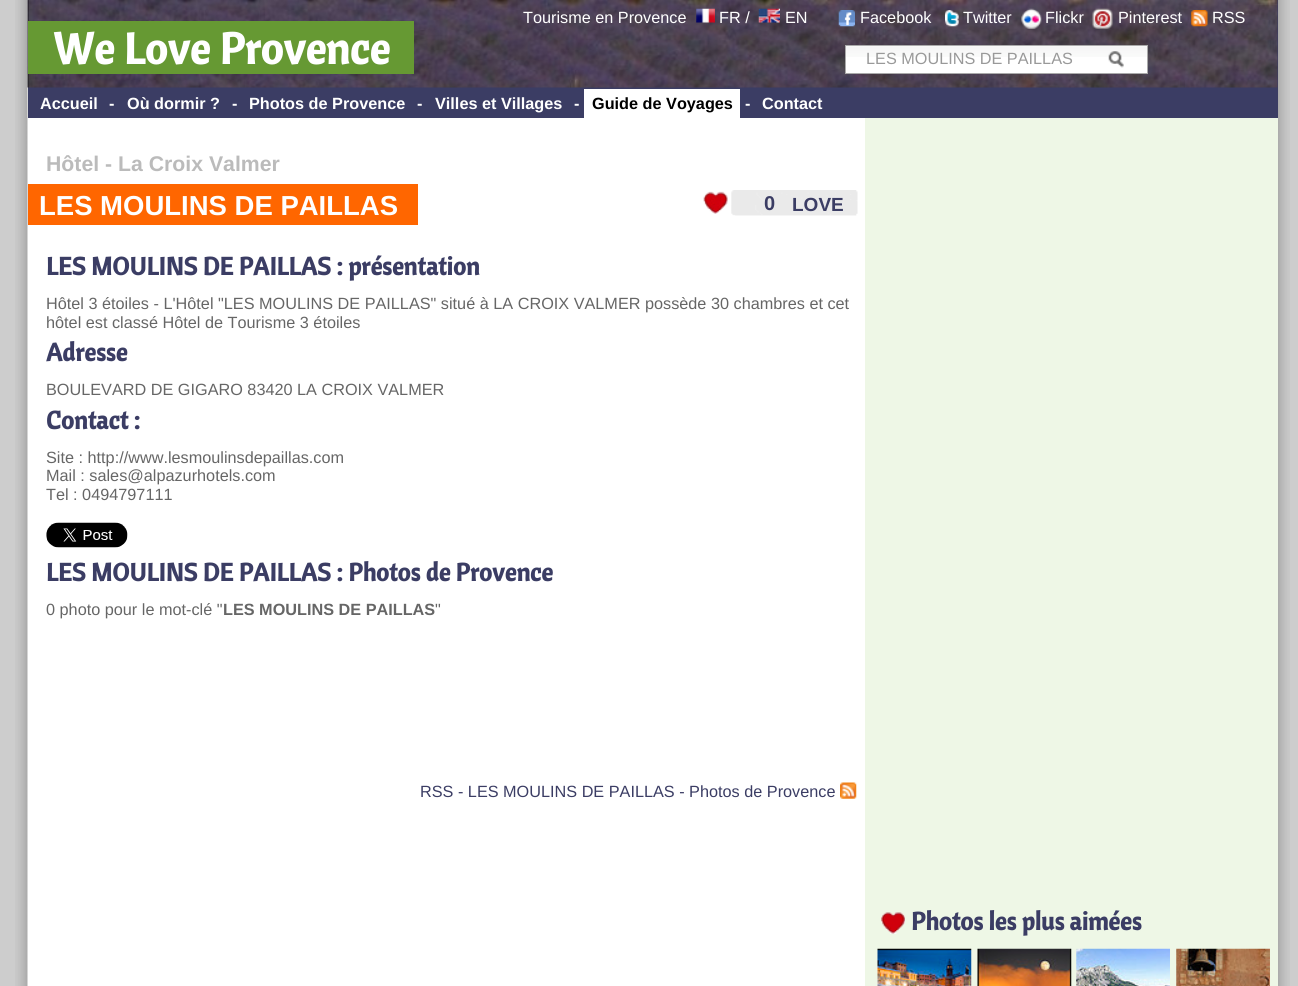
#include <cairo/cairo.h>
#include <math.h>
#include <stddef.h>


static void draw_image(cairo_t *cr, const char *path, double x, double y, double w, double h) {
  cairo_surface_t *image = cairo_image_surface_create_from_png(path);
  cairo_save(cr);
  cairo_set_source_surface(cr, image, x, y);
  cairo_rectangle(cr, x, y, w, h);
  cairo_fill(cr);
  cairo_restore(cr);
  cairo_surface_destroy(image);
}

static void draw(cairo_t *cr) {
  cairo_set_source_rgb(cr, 205 / 255.0, 205 / 255.0, 205 / 255.0);
  cairo_paint(cr);
  draw_image(cr, "images/1.png", 15, 0, 1275, 986);
  cairo_set_source_rgb(cr, 59 / 255.0, 61 / 255.0, 100 / 255.0);
  cairo_rectangle(cr, 28, 0, 1250, 118);
  cairo_fill(cr);
  draw_image(cr, "images/9.png", 27, 0, 1251, 88);
  draw_image(cr, "images/2.png", 696, 8, 19, 15);
  draw_image(cr, "images/3.png", 758, 8, 22, 15);
  draw_image(cr, "images/4.png", 838, 10, 17, 17);
  draw_image(cr, "images/5.png", 945, 10, 14, 17);
  draw_image(cr, "images/6.png", 1021, 8, 21, 21);
  draw_image(cr, "images/7.png", 1092, 8, 21, 21);
  draw_image(cr, "images/8.png", 1191, 10, 17, 17);
  cairo_set_source_rgb(cr, 102 / 255.0, 153 / 255.0, 51 / 255.0);
  cairo_rectangle(cr, 28, 21, 386, 53);
  cairo_fill(cr);
  cairo_set_source_rgb(cr, 1, 1, 1);
  cairo_rectangle(cr, 846, 46, 301, 27);
  cairo_fill(cr);
  draw_image(cr, "images/10.png", 846, 46, 301, 11);
  cairo_rectangle(cr, 845.5, 45.5, 302, 28);
  cairo_set_source_rgb(cr, 170 / 255.0, 170 / 255.0, 170 / 255.0);
  cairo_set_line_width(cr, 1);
  cairo_stroke(cr);
  draw_image(cr, "images/11.png", 1108, 51, 16, 17);
  cairo_set_source_rgb(cr, 1, 1, 1);
  cairo_rectangle(cr, 584, 89, 156, 29);
  cairo_fill(cr);
  cairo_set_source_rgb(cr, 1, 102 / 255.0, 0);
  cairo_rectangle(cr, 28, 184, 390, 41);
  cairo_fill(cr);
  draw_image(cr, "images/12.png", 703, 190, 155, 26);
  draw_image(cr, "images/13.png", 46, 522, 82, 26);
  draw_image(cr, "images/14.png", 840, 782, 17, 17);
  cairo_set_source_rgb(cr, 238 / 255.0, 247 / 255.0, 230 / 255.0);
  cairo_rectangle(cr, 865, 118, 413, 868);
  cairo_fill(cr);
  draw_image(cr, "images/15.png", 881, 912, 24, 22);
  draw_image(cr, "images/16.png", 877, 948, 95, 38);
  draw_image(cr, "images/17.png", 977, 948, 95, 38);
  draw_image(cr, "images/18.png", 1076, 948, 94, 38);
  draw_image(cr, "images/19.png", 1176, 948, 94, 38);
  cairo_select_font_face(cr, "Liberation Sans", CAIRO_FONT_SLANT_NORMAL, CAIRO_FONT_WEIGHT_NORMAL);
  cairo_set_font_size(cr, 16.25);
  cairo_set_source_rgb(cr, 1, 1, 1);
  cairo_move_to(cr, 523, 23);
  cairo_show_text(cr, "Tourisme en Provence");
  cairo_move_to(cr, 719, 23);
  cairo_show_text(cr, "FR /");
  cairo_move_to(cr, 785, 23);
  cairo_show_text(cr, "EN");
  cairo_move_to(cr, 860, 23);
  cairo_show_text(cr, "Facebook");
  cairo_move_to(cr, 963, 23);
  cairo_show_text(cr, "Twitter");
  cairo_move_to(cr, 1045, 23);
  cairo_show_text(cr, "Flickr");
  cairo_move_to(cr, 1118, 23);
  cairo_show_text(cr, "Pinterest");
  cairo_move_to(cr, 1212, 23);
  cairo_show_text(cr, "RSS");
  cairo_select_font_face(cr, "Cantora One", CAIRO_FONT_SLANT_NORMAL, CAIRO_FONT_WEIGHT_BOLD);
  cairo_set_font_size(cr, 43.75);
  cairo_move_to(cr, 53, 64);
  cairo_show_text(cr, "We Love Provence");
  cairo_select_font_face(cr, "Liberation Sans", CAIRO_FONT_SLANT_NORMAL, CAIRO_FONT_WEIGHT_NORMAL);
  cairo_set_font_size(cr, 16.25);
  cairo_set_source_rgb(cr, 153 / 255.0, 153 / 255.0, 153 / 255.0);
  cairo_move_to(cr, 866, 64);
  cairo_show_text(cr, "LES MOULINS DE PAILLAS");
  cairo_select_font_face(cr, "Liberation Sans", CAIRO_FONT_SLANT_NORMAL, CAIRO_FONT_WEIGHT_BOLD);
  cairo_set_source_rgb(cr, 1, 1, 1);
  cairo_move_to(cr, 40, 109);
  cairo_show_text(cr, "Accueil");
  cairo_move_to(cr, 109, 109);
  cairo_show_text(cr, "-");
  cairo_move_to(cr, 127, 109);
  cairo_show_text(cr, "Où dormir ?");
  cairo_move_to(cr, 232, 109);
  cairo_show_text(cr, "-");
  cairo_move_to(cr, 249, 109);
  cairo_show_text(cr, "Photos de Provence");
  cairo_move_to(cr, 417, 109);
  cairo_show_text(cr, "-");
  cairo_move_to(cr, 435, 109);
  cairo_show_text(cr, "Villes et Villages");
  cairo_move_to(cr, 574, 109);
  cairo_show_text(cr, "-");
  cairo_set_source_rgb(cr, 0, 0, 0);
  cairo_move_to(cr, 592, 109);
  cairo_show_text(cr, "Guide de Voyages");
  cairo_set_source_rgb(cr, 1, 1, 1);
  cairo_move_to(cr, 745, 109);
  cairo_show_text(cr, "-");
  cairo_move_to(cr, 762, 109);
  cairo_show_text(cr, "Contact");
  cairo_set_font_size(cr, 21.25);
  cairo_set_source_rgb(cr, 187 / 255.0, 187 / 255.0, 187 / 255.0);
  cairo_move_to(cr, 46, 171);
  cairo_show_text(cr, "Hôtel - La Croix Valmer");
  cairo_set_font_size(cr, 27.5);
  cairo_set_source_rgb(cr, 1, 1, 1);
  cairo_move_to(cr, 39, 215);
  cairo_show_text(cr, "LES MOULINS DE PAILLAS");
  cairo_set_font_size(cr, 20);
  cairo_set_source_rgb(cr, 59 / 255.0, 61 / 255.0, 100 / 255.0);
  cairo_move_to(cr, 764, 210);
  cairo_show_text(cr, "0");
  cairo_set_font_size(cr, 19);
  cairo_move_to(cr, 792, 211);
  cairo_show_text(cr, "LOVE");
  cairo_select_font_face(cr, "Cantora One", CAIRO_FONT_SLANT_NORMAL, CAIRO_FONT_WEIGHT_BOLD);
  cairo_set_font_size(cr, 25);
  cairo_move_to(cr, 46, 275);
  cairo_show_text(cr, "LES MOULINS DE PAILLAS : présentation");
  cairo_select_font_face(cr, "Liberation Sans", CAIRO_FONT_SLANT_NORMAL, CAIRO_FONT_WEIGHT_NORMAL);
  cairo_set_font_size(cr, 16.25);
  cairo_set_source_rgb(cr, 102 / 255.0, 102 / 255.0, 102 / 255.0);
  cairo_move_to(cr, 46, 309);
  cairo_show_text(cr, "Hôtel 3 étoiles - L'Hôtel \"LES MOULINS DE PAILLAS\" situé à LA CROIX VALMER possède 30 chambres et cet");
  cairo_move_to(cr, 46, 328);
  cairo_show_text(cr, "hôtel est classé Hôtel de Tourisme 3 étoiles");
  cairo_select_font_face(cr, "Cantora One", CAIRO_FONT_SLANT_NORMAL, CAIRO_FONT_WEIGHT_BOLD);
  cairo_set_font_size(cr, 25);
  cairo_set_source_rgb(cr, 59 / 255.0, 61 / 255.0, 100 / 255.0);
  cairo_move_to(cr, 46, 361);
  cairo_show_text(cr, "Adresse");
  cairo_select_font_face(cr, "Liberation Sans", CAIRO_FONT_SLANT_NORMAL, CAIRO_FONT_WEIGHT_NORMAL);
  cairo_set_font_size(cr, 16.25);
  cairo_set_source_rgb(cr, 102 / 255.0, 102 / 255.0, 102 / 255.0);
  cairo_move_to(cr, 46, 395);
  cairo_show_text(cr, "BOULEVARD DE GIGARO 83420 LA CROIX VALMER");
  cairo_select_font_face(cr, "Cantora One", CAIRO_FONT_SLANT_NORMAL, CAIRO_FONT_WEIGHT_BOLD);
  cairo_set_font_size(cr, 25);
  cairo_set_source_rgb(cr, 59 / 255.0, 61 / 255.0, 100 / 255.0);
  cairo_move_to(cr, 46, 429);
  cairo_show_text(cr, "Contact :");
  cairo_select_font_face(cr, "Liberation Sans", CAIRO_FONT_SLANT_NORMAL, CAIRO_FONT_WEIGHT_NORMAL);
  cairo_set_font_size(cr, 16.25);
  cairo_set_source_rgb(cr, 102 / 255.0, 102 / 255.0, 102 / 255.0);
  cairo_move_to(cr, 46, 463);
  cairo_show_text(cr, "Site : http://www.lesmoulinsdepaillas.com");
  cairo_move_to(cr, 46, 481);
  cairo_show_text(cr, "Mail : sales@alpazurhotels.com");
  cairo_move_to(cr, 46, 500);
  cairo_show_text(cr, "Tel : 0494797111");
  cairo_select_font_face(cr, "Cantora One", CAIRO_FONT_SLANT_NORMAL, CAIRO_FONT_WEIGHT_BOLD);
  cairo_set_font_size(cr, 25);
  cairo_set_source_rgb(cr, 59 / 255.0, 61 / 255.0, 100 / 255.0);
  cairo_move_to(cr, 46, 581);
  cairo_show_text(cr, "LES MOULINS DE PAILLAS : Photos de Provence");
  cairo_select_font_face(cr, "Liberation Sans", CAIRO_FONT_SLANT_NORMAL, CAIRO_FONT_WEIGHT_NORMAL);
  cairo_set_font_size(cr, 16.25);
  cairo_set_source_rgb(cr, 102 / 255.0, 102 / 255.0, 102 / 255.0);
  cairo_move_to(cr, 46, 615);
  cairo_show_text(cr, "0 photo pour le mot-clé \"");
  cairo_select_font_face(cr, "Liberation Sans", CAIRO_FONT_SLANT_NORMAL, CAIRO_FONT_WEIGHT_BOLD);
  cairo_move_to(cr, 223, 615);
  cairo_show_text(cr, "LES MOULINS DE PAILLAS");
  cairo_select_font_face(cr, "Liberation Sans", CAIRO_FONT_SLANT_NORMAL, CAIRO_FONT_WEIGHT_NORMAL);
  cairo_move_to(cr, 435, 615);
  cairo_show_text(cr, "\"");
  cairo_set_source_rgb(cr, 59 / 255.0, 61 / 255.0, 100 / 255.0);
  cairo_move_to(cr, 420, 797);
  cairo_show_text(cr, "RSS - LES MOULINS DE PAILLAS - Photos de Provence");
  cairo_select_font_face(cr, "Cantora One", CAIRO_FONT_SLANT_NORMAL, CAIRO_FONT_WEIGHT_BOLD);
  cairo_set_font_size(cr, 25);
  cairo_move_to(cr, 911, 930);
  cairo_show_text(cr, "Photos les plus aimées");
}

int main(void) {
  cairo_surface_t *surface = cairo_image_surface_create(CAIRO_FORMAT_RGB24, 1298, 986);
  cairo_t *cr = cairo_create(surface);
  cairo_font_options_t *options = cairo_font_options_create();
  cairo_font_options_set_hint_metrics(options, CAIRO_HINT_METRICS_OFF);
  cairo_font_options_set_hint_style(options, CAIRO_HINT_STYLE_NONE);
  cairo_set_font_options(cr, options);
  cairo_set_miter_limit(cr, 4);
  draw(cr);
  cairo_surface_write_to_png(surface, "out.png");
  cairo_font_options_destroy(options);
  cairo_destroy(cr);
  cairo_surface_destroy(surface);
  return 0;
}
